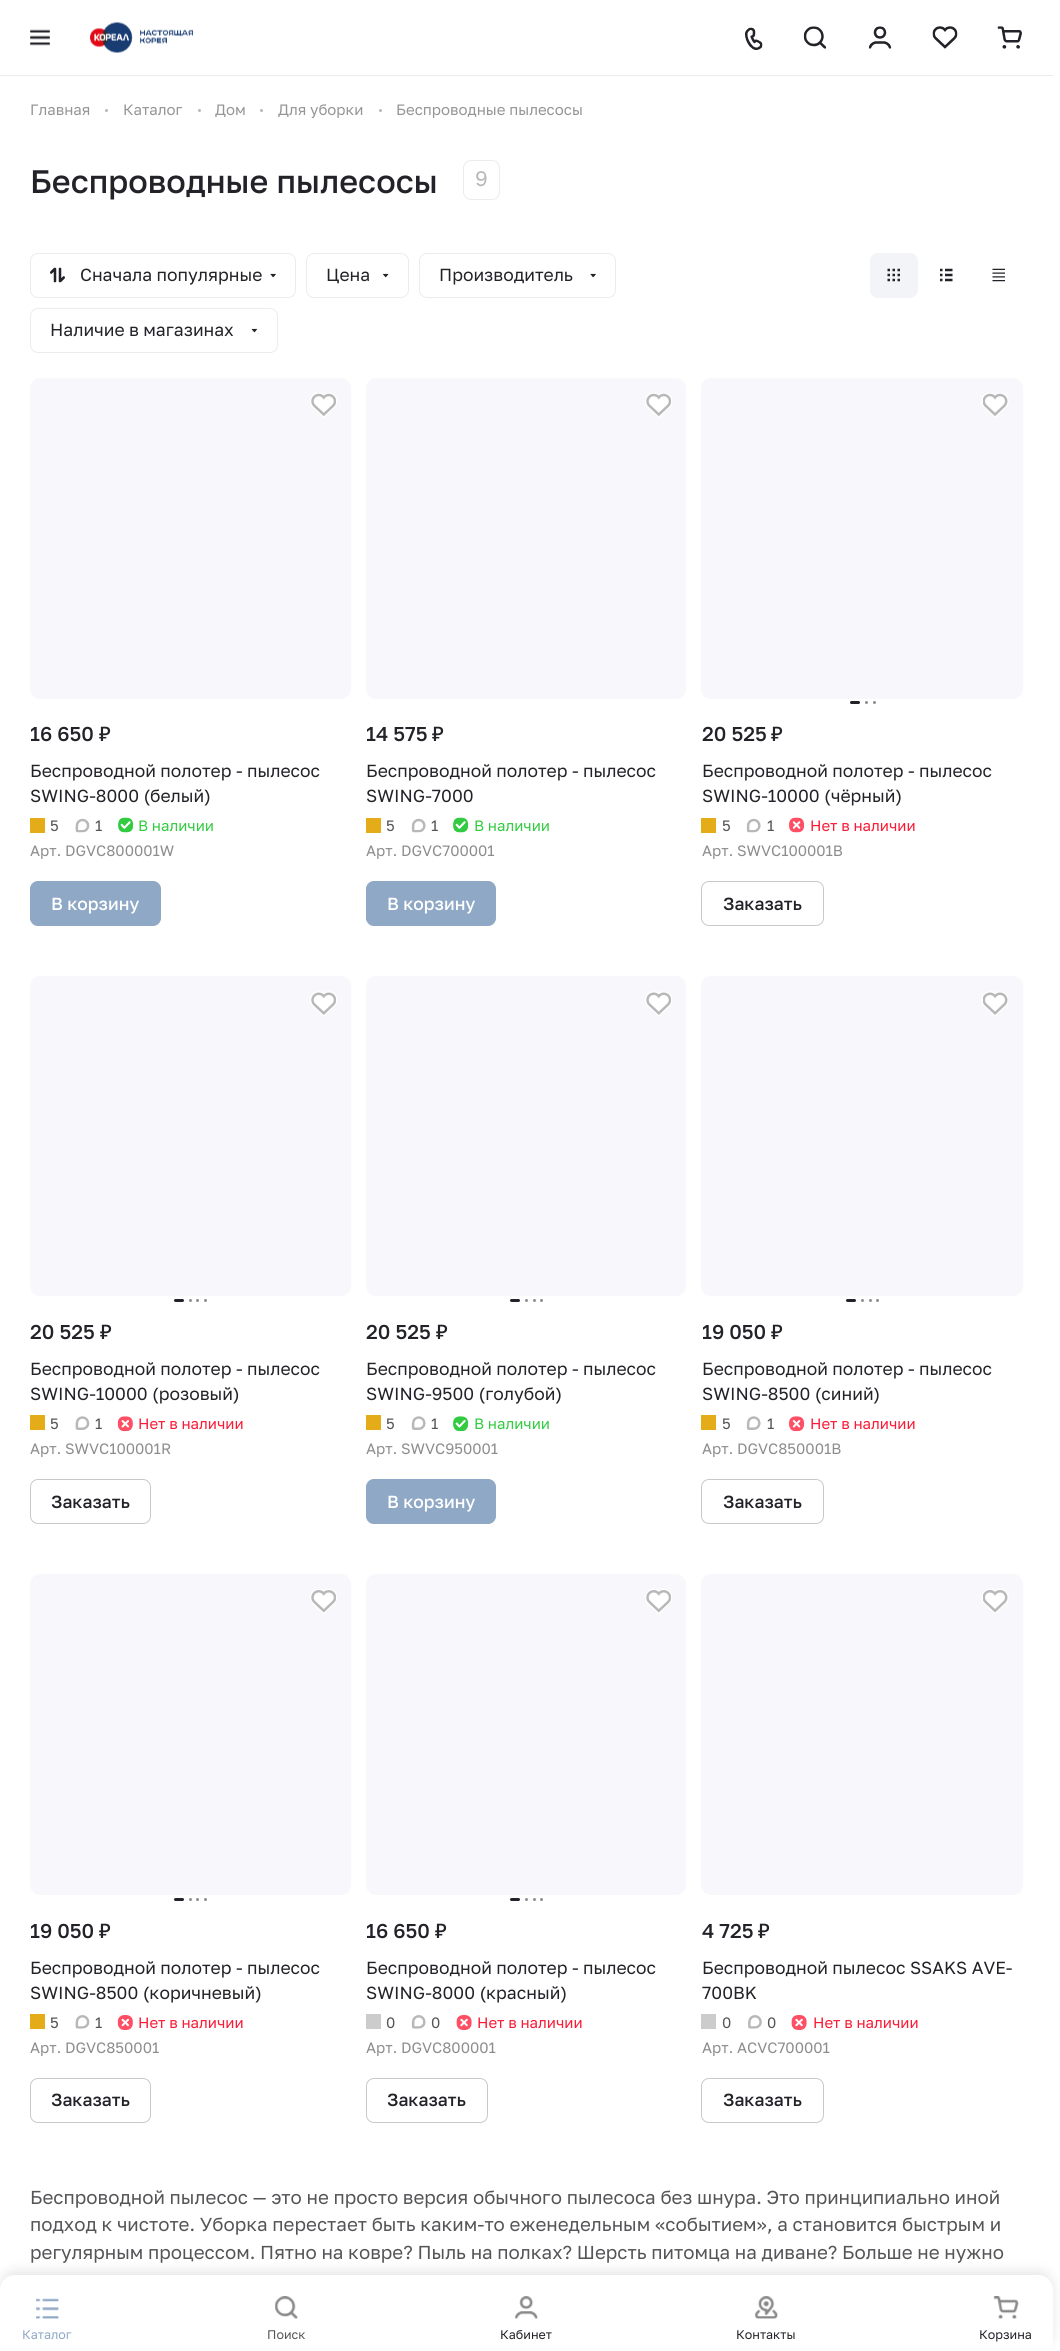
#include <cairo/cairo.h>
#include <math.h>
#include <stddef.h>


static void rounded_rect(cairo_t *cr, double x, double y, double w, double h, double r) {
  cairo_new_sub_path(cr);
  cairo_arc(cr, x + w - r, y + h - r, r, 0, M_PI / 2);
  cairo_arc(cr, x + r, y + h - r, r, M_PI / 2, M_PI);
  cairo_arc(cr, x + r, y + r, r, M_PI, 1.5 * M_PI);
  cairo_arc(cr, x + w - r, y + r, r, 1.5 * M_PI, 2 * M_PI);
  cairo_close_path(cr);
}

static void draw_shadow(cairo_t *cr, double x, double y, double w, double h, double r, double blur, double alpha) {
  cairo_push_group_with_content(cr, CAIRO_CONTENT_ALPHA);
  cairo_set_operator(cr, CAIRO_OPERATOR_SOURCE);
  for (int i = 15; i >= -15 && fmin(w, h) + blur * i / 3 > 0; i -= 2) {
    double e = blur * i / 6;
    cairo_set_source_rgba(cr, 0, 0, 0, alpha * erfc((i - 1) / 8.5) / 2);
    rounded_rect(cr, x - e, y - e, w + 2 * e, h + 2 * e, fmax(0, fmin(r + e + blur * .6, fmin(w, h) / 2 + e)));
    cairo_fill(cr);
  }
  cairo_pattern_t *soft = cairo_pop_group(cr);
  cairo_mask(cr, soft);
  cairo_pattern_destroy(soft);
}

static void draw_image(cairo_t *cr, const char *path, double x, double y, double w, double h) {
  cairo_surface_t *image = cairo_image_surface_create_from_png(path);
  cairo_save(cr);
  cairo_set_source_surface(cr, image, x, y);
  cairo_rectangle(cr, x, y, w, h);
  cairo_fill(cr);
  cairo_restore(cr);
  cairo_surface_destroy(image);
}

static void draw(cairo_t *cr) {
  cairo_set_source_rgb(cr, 1, 1, 1);
  cairo_paint(cr);
  cairo_set_source_rgb(cr, 235 / 255.0, 236 / 255.0, 239 / 255.0);
  cairo_rectangle(cr, 0, 75, 1053, 1);
  cairo_fill(cr);
  draw_image(cr, "images/1.png", 30, 29, 20, 17);
  draw_image(cr, "images/2.png", 90, 22, 103, 31);
  draw_image(cr, "images/3.png", 745, 27, 18, 23);
  draw_image(cr, "images/4.png", 803, 26, 24, 23);
  draw_image(cr, "images/5.png", 868, 26, 24, 23);
  draw_image(cr, "images/6.png", 932, 26, 26, 23);
  draw_image(cr, "images/7.png", 997, 26, 25, 23);
  cairo_set_source_rgb(cr, 184 / 255.0, 184 / 255.0, 185 / 255.0);
  cairo_arc(cr, 106.5, 110.5, 1.5, 0, 2 * M_PI);
  cairo_fill(cr);
  cairo_arc(cr, 199.5, 110.5, 1.5, 0, 2 * M_PI);
  cairo_fill(cr);
  cairo_arc(cr, 261.5, 110.5, 1.5, 0, 2 * M_PI);
  cairo_fill(cr);
  cairo_arc(cr, 380.5, 110.5, 1.5, 0, 2 * M_PI);
  cairo_fill(cr);
  rounded_rect(cr, 463.5, 160.5, 36, 39, 7.5);
  cairo_set_source_rgb(cr, 235 / 255.0, 236 / 255.0, 239 / 255.0);
  cairo_set_line_width(cr, 1);
  cairo_stroke(cr);
  rounded_rect(cr, 30.5, 253.5, 265, 44, 7.5);
  cairo_stroke(cr);
  draw_image(cr, "images/8.png", 50, 267, 15, 16);
  draw_image(cr, "images/9.png", 270, 273, 6, 5);
  rounded_rect(cr, 306.5, 253.5, 102, 44, 7.5);
  cairo_stroke(cr);
  draw_image(cr, "images/10.png", 383, 273, 6, 5);
  rounded_rect(cr, 419.5, 253.5, 196, 44, 7.5);
  cairo_stroke(cr);
  draw_image(cr, "images/9.png", 590, 273, 6, 5);
  rounded_rect(cr, 30.5, 308.5, 247, 44, 7.5);
  cairo_stroke(cr);
  draw_image(cr, "images/11.png", 251, 328, 7, 5);
  cairo_set_source_rgb(cr, 243 / 255.0, 244 / 255.0, 247 / 255.0);
  rounded_rect(cr, 870, 253, 48, 45, 8);
  cairo_fill(cr);
  draw_image(cr, "images/12.png", 887, 268, 13, 14);
  draw_image(cr, "images/13.png", 940, 268, 13, 14);
  draw_image(cr, "images/14.png", 992, 268, 13, 14);
  cairo_set_source_rgb(cr, 248 / 255.0, 248 / 255.0, 252 / 255.0);
  rounded_rect(cr, 30, 378, 321, 321, 10);
  cairo_fill(cr);
  draw_image(cr, "images/15.png", 310, 393, 27, 25);
  draw_image(cr, "images/16.png", 311, 393, 25, 24);
  cairo_set_source_rgb(cr, 229 / 255.0, 172 / 255.0, 26 / 255.0);
  cairo_rectangle(cr, 30, 818, 15, 15);
  cairo_fill(cr);
  draw_image(cr, "images/17.png", 75, 818, 15, 15);
  draw_image(cr, "images/18.png", 118, 817, 16, 16);
  cairo_set_source_rgb(cr, 143 / 255.0, 168 / 255.0, 197 / 255.0);
  rounded_rect(cr, 30.5, 881.5, 130, 44, 7.5);
  cairo_fill_preserve(cr);
  cairo_stroke(cr);
  cairo_set_source_rgb(cr, 248 / 255.0, 248 / 255.0, 252 / 255.0);
  rounded_rect(cr, 366, 378, 320, 321, 10);
  cairo_fill(cr);
  draw_image(cr, "images/15.png", 645, 393, 27, 25);
  draw_image(cr, "images/16.png", 646, 393, 25, 24);
  cairo_set_source_rgb(cr, 229 / 255.0, 172 / 255.0, 26 / 255.0);
  cairo_rectangle(cr, 366, 818, 15, 15);
  cairo_fill(cr);
  draw_image(cr, "images/19.png", 411, 818, 15, 15);
  draw_image(cr, "images/18.png", 453, 817, 16, 16);
  cairo_set_source_rgb(cr, 143 / 255.0, 168 / 255.0, 197 / 255.0);
  rounded_rect(cr, 366.5, 881.5, 129, 44, 7.5);
  cairo_fill_preserve(cr);
  cairo_stroke(cr);
  cairo_set_source_rgb(cr, 248 / 255.0, 248 / 255.0, 252 / 255.0);
  rounded_rect(cr, 701, 378, 322, 321, 10);
  cairo_fill(cr);
  draw_image(cr, "images/20.png", 981, 393, 28, 24);
  draw_image(cr, "images/21.png", 983, 393, 25, 23);
  cairo_set_source_rgb(cr, 34 / 255.0, 34 / 255.0, 40 / 255.0);
  rounded_rect(cr, 850, 701, 10, 3, 1.5);
  cairo_fill(cr);
  cairo_set_source_rgb(cr, 141 / 255.0, 141 / 255.0, 141 / 255.0);
  cairo_arc(cr, 866.5, 702.5, 1.5, 0, 2 * M_PI);
  cairo_fill(cr);
  cairo_arc(cr, 874.5, 702.5, 1.5, 0, 2 * M_PI);
  cairo_fill(cr);
  cairo_set_source_rgb(cr, 229 / 255.0, 172 / 255.0, 26 / 255.0);
  cairo_rectangle(cr, 701, 818, 15, 15);
  cairo_fill(cr);
  draw_image(cr, "images/19.png", 746, 818, 15, 15);
  draw_image(cr, "images/22.png", 789, 817, 16, 16);
  rounded_rect(cr, 701.5, 881.5, 122, 44, 7.5);
  cairo_set_source_rgb(cr, 201 / 255.0, 201 / 255.0, 202 / 255.0);
  cairo_stroke(cr);
  cairo_set_source_rgb(cr, 248 / 255.0, 248 / 255.0, 252 / 255.0);
  rounded_rect(cr, 30, 976, 321, 320, 10);
  cairo_fill(cr);
  draw_image(cr, "images/23.png", 310, 991, 27, 25);
  draw_image(cr, "images/24.png", 311, 992, 25, 23);
  cairo_set_source_rgb(cr, 34 / 255.0, 34 / 255.0, 40 / 255.0);
  rounded_rect(cr, 174, 1299, 10, 3, 1.5);
  cairo_fill(cr);
  cairo_set_source_rgb(cr, 141 / 255.0, 141 / 255.0, 141 / 255.0);
  cairo_arc(cr, 190.5, 1300.5, 1.5, 0, 2 * M_PI);
  cairo_fill(cr);
  cairo_arc(cr, 197.5, 1300.5, 1.5, 0, 2 * M_PI);
  cairo_fill(cr);
  cairo_arc(cr, 205.5, 1300.5, 1.5, 0, 2 * M_PI);
  cairo_fill(cr);
  draw_image(cr, "images/25.png", 33, 1430, 9, 1);
  cairo_set_source_rgb(cr, 229 / 255.0, 172 / 255.0, 26 / 255.0);
  cairo_rectangle(cr, 30, 1415, 15, 15);
  cairo_fill(cr);
  draw_image(cr, "images/26.png", 75, 1416, 15, 14);
  draw_image(cr, "images/27.png", 117, 1416, 16, 16);
  rounded_rect(cr, 30.5, 1479.5, 120, 44, 7.5);
  cairo_set_source_rgb(cr, 201 / 255.0, 201 / 255.0, 202 / 255.0);
  cairo_stroke(cr);
  cairo_set_source_rgb(cr, 248 / 255.0, 248 / 255.0, 252 / 255.0);
  rounded_rect(cr, 366, 976, 320, 320, 10);
  cairo_fill(cr);
  draw_image(cr, "images/23.png", 645, 991, 27, 25);
  draw_image(cr, "images/24.png", 646, 992, 25, 23);
  cairo_set_source_rgb(cr, 34 / 255.0, 34 / 255.0, 40 / 255.0);
  rounded_rect(cr, 510, 1299, 10, 3, 1.5);
  cairo_fill(cr);
  cairo_set_source_rgb(cr, 141 / 255.0, 141 / 255.0, 141 / 255.0);
  cairo_arc(cr, 526.5, 1300.5, 1.5, 0, 2 * M_PI);
  cairo_fill(cr);
  cairo_arc(cr, 534.5, 1300.5, 1.5, 0, 2 * M_PI);
  cairo_fill(cr);
  cairo_arc(cr, 541.5, 1300.5, 1.5, 0, 2 * M_PI);
  cairo_fill(cr);
  draw_image(cr, "images/28.png", 369, 1430, 10, 1);
  cairo_set_source_rgb(cr, 229 / 255.0, 172 / 255.0, 26 / 255.0);
  cairo_rectangle(cr, 366, 1415, 15, 15);
  cairo_fill(cr);
  draw_image(cr, "images/29.png", 411, 1416, 15, 14);
  draw_image(cr, "images/30.png", 453, 1416, 16, 16);
  cairo_set_source_rgb(cr, 143 / 255.0, 168 / 255.0, 197 / 255.0);
  rounded_rect(cr, 366.5, 1479.5, 129, 44, 7.5);
  cairo_fill_preserve(cr);
  cairo_stroke(cr);
  cairo_set_source_rgb(cr, 248 / 255.0, 248 / 255.0, 252 / 255.0);
  rounded_rect(cr, 701, 976, 322, 320, 10);
  cairo_fill(cr);
  draw_image(cr, "images/31.png", 981, 991, 28, 25);
  draw_image(cr, "images/32.png", 983, 992, 25, 23);
  cairo_set_source_rgb(cr, 34 / 255.0, 34 / 255.0, 40 / 255.0);
  rounded_rect(cr, 846, 1299, 10, 3, 1.5);
  cairo_fill(cr);
  cairo_set_source_rgb(cr, 141 / 255.0, 141 / 255.0, 141 / 255.0);
  cairo_arc(cr, 862.5, 1300.5, 1.5, 0, 2 * M_PI);
  cairo_fill(cr);
  cairo_arc(cr, 870.5, 1300.5, 1.5, 0, 2 * M_PI);
  cairo_fill(cr);
  cairo_arc(cr, 877.5, 1300.5, 1.5, 0, 2 * M_PI);
  cairo_fill(cr);
  draw_image(cr, "images/28.png", 704, 1430, 10, 1);
  cairo_set_source_rgb(cr, 229 / 255.0, 172 / 255.0, 26 / 255.0);
  cairo_rectangle(cr, 701, 1415, 15, 15);
  cairo_fill(cr);
  draw_image(cr, "images/29.png", 746, 1416, 15, 14);
  draw_image(cr, "images/33.png", 789, 1416, 16, 16);
  rounded_rect(cr, 701.5, 1479.5, 122, 44, 7.5);
  cairo_set_source_rgb(cr, 201 / 255.0, 201 / 255.0, 202 / 255.0);
  cairo_stroke(cr);
  cairo_set_source_rgb(cr, 248 / 255.0, 248 / 255.0, 252 / 255.0);
  rounded_rect(cr, 30, 1574, 321, 321, 10);
  cairo_fill(cr);
  draw_image(cr, "images/34.png", 310, 1589, 27, 25);
  draw_image(cr, "images/35.png", 311, 1590, 25, 23);
  cairo_set_source_rgb(cr, 34 / 255.0, 34 / 255.0, 40 / 255.0);
  rounded_rect(cr, 174, 1898, 10, 3, 1.5);
  cairo_fill(cr);
  cairo_set_source_rgb(cr, 141 / 255.0, 141 / 255.0, 141 / 255.0);
  cairo_arc(cr, 190.5, 1899.5, 1.5, 0, 2 * M_PI);
  cairo_fill(cr);
  cairo_arc(cr, 197.5, 1899.5, 1.5, 0, 2 * M_PI);
  cairo_fill(cr);
  cairo_arc(cr, 205.5, 1899.5, 1.5, 0, 2 * M_PI);
  cairo_fill(cr);
  cairo_set_source_rgb(cr, 229 / 255.0, 172 / 255.0, 26 / 255.0);
  cairo_rectangle(cr, 30, 2014, 15, 15);
  cairo_fill(cr);
  draw_image(cr, "images/36.png", 75, 2015, 15, 14);
  draw_image(cr, "images/37.png", 117, 2015, 16, 15);
  rounded_rect(cr, 30.5, 2078.5, 120, 44, 7.5);
  cairo_set_source_rgb(cr, 201 / 255.0, 201 / 255.0, 202 / 255.0);
  cairo_stroke(cr);
  cairo_set_source_rgb(cr, 248 / 255.0, 248 / 255.0, 252 / 255.0);
  rounded_rect(cr, 366, 1574, 320, 321, 10);
  cairo_fill(cr);
  draw_image(cr, "images/34.png", 645, 1589, 27, 25);
  draw_image(cr, "images/35.png", 646, 1590, 25, 23);
  cairo_set_source_rgb(cr, 34 / 255.0, 34 / 255.0, 40 / 255.0);
  rounded_rect(cr, 510, 1898, 10, 3, 1.5);
  cairo_fill(cr);
  cairo_set_source_rgb(cr, 141 / 255.0, 141 / 255.0, 141 / 255.0);
  cairo_arc(cr, 526.5, 1899.5, 1.5, 0, 2 * M_PI);
  cairo_fill(cr);
  cairo_arc(cr, 534.5, 1899.5, 1.5, 0, 2 * M_PI);
  cairo_fill(cr);
  cairo_arc(cr, 541.5, 1899.5, 1.5, 0, 2 * M_PI);
  cairo_fill(cr);
  cairo_set_source_rgb(cr, 204 / 255.0, 204 / 255.0, 204 / 255.0);
  cairo_rectangle(cr, 366, 2014, 15, 15);
  cairo_fill(cr);
  draw_image(cr, "images/38.png", 411, 2015, 15, 14);
  draw_image(cr, "images/39.png", 456, 2015, 16, 15);
  rounded_rect(cr, 366.5, 2078.5, 121, 44, 7.5);
  cairo_set_source_rgb(cr, 201 / 255.0, 201 / 255.0, 202 / 255.0);
  cairo_stroke(cr);
  cairo_set_source_rgb(cr, 248 / 255.0, 248 / 255.0, 252 / 255.0);
  rounded_rect(cr, 701, 1574, 322, 321, 10);
  cairo_fill(cr);
  draw_image(cr, "images/40.png", 981, 1589, 28, 25);
  draw_image(cr, "images/41.png", 983, 1590, 25, 23);
  cairo_set_source_rgb(cr, 204 / 255.0, 204 / 255.0, 204 / 255.0);
  cairo_rectangle(cr, 701, 2014, 15, 15);
  cairo_fill(cr);
  draw_image(cr, "images/42.png", 748, 2015, 14, 14);
  draw_image(cr, "images/39.png", 791, 2015, 16, 15);
  rounded_rect(cr, 701.5, 2078.5, 122, 44, 7.5);
  cairo_set_source_rgb(cr, 201 / 255.0, 201 / 255.0, 202 / 255.0);
  cairo_stroke(cr);
  cairo_set_source_rgb(cr, 0, 0, 0);
  draw_shadow(cr, 0, 2271, 1053, 77, 15, 6, 0.1);
  cairo_set_source_rgb(cr, 1, 1, 1);
  cairo_new_path(cr);
  cairo_move_to(cr, 15, 2275);
  cairo_line_to(cr, 1038, 2275);
  cairo_curve_to(cr, 1046.5, 2275, 1053, 2281.5, 1053, 2290);
  cairo_line_to(cr, 1053, 2351);
  cairo_line_to(cr, 0, 2351);
  cairo_line_to(cr, 0, 2290);
  cairo_curve_to(cr, 0, 2281.5, 6.5, 2275, 15, 2275);
  cairo_close_path(cr);
  cairo_fill(cr);
  draw_image(cr, "images/43.png", 36, 2298, 24, 21);
  draw_image(cr, "images/44.png", 274, 2296, 24, 23);
  draw_image(cr, "images/45.png", 515, 2296, 23, 23);
  draw_image(cr, "images/46.png", 754, 2296, 24, 23);
  draw_image(cr, "images/47.png", 993, 2296, 26, 23);
  cairo_select_font_face(cr, "Golos Text", CAIRO_FONT_SLANT_NORMAL, CAIRO_FONT_WEIGHT_NORMAL);
  cairo_set_font_size(cr, 15);
  cairo_set_source_rgb(cr, 149 / 255.0, 149 / 255.0, 152 / 255.0);
  cairo_move_to(cr, 30, 115);
  cairo_show_text(cr, "Главная");
  cairo_move_to(cr, 123, 115);
  cairo_show_text(cr, "Каталог");
  cairo_move_to(cr, 215, 115);
  cairo_show_text(cr, "Дом");
  cairo_move_to(cr, 278, 115);
  cairo_show_text(cr, "Для уборки");
  cairo_move_to(cr, 396, 115);
  cairo_show_text(cr, "Беспроводные пылесосы");
  cairo_select_font_face(cr, "Golos Text Medium", CAIRO_FONT_SLANT_NORMAL, CAIRO_FONT_WEIGHT_NORMAL);
  cairo_set_font_size(cr, 32.5);
  cairo_set_source_rgb(cr, 34 / 255.0, 34 / 255.0, 40 / 255.0);
  cairo_move_to(cr, 30, 193);
  cairo_show_text(cr, "Беспроводные пылесосы");
  cairo_select_font_face(cr, "Golos Text", CAIRO_FONT_SLANT_NORMAL, CAIRO_FONT_WEIGHT_NORMAL);
  cairo_set_font_size(cr, 21);
  cairo_set_source_rgb(cr, 184 / 255.0, 184 / 255.0, 185 / 255.0);
  cairo_move_to(cr, 475, 186);
  cairo_show_text(cr, "9");
  cairo_set_font_size(cr, 17.5);
  cairo_set_source_rgb(cr, 34 / 255.0, 34 / 255.0, 40 / 255.0);
  cairo_move_to(cr, 80, 281);
  cairo_show_text(cr, "Сначала популярные");
  cairo_move_to(cr, 326, 281);
  cairo_show_text(cr, "Цена");
  cairo_move_to(cr, 439, 281);
  cairo_show_text(cr, "Производитель");
  cairo_move_to(cr, 50, 336);
  cairo_show_text(cr, "Наличие в магазинах");
  cairo_select_font_face(cr, "Golos Text Medium", CAIRO_FONT_SLANT_NORMAL, CAIRO_FONT_WEIGHT_NORMAL);
  cairo_set_font_size(cr, 20);
  cairo_move_to(cr, 30, 741);
  cairo_show_text(cr, "16 650");
  cairo_select_font_face(cr, "Noto Sans Medium", CAIRO_FONT_SLANT_NORMAL, CAIRO_FONT_WEIGHT_NORMAL);
  cairo_move_to(cr, 99, 741);
  cairo_show_text(cr, "₽");
  cairo_select_font_face(cr, "Golos Text", CAIRO_FONT_SLANT_NORMAL, CAIRO_FONT_WEIGHT_NORMAL);
  cairo_set_font_size(cr, 17.5);
  cairo_move_to(cr, 30, 777);
  cairo_show_text(cr, "Беспроводной полотер - пылесос");
  cairo_move_to(cr, 30, 802);
  cairo_show_text(cr, "SWING-8000 (белый)");
  cairo_set_font_size(cr, 15);
  cairo_set_source_rgb(cr, 85 / 255.0, 85 / 255.0, 88 / 255.0);
  cairo_move_to(cr, 50, 831);
  cairo_show_text(cr, "5");
  cairo_move_to(cr, 95, 831);
  cairo_show_text(cr, "1");
  cairo_set_source_rgb(cr, 50 / 255.0, 203 / 255.0, 65 / 255.0);
  cairo_move_to(cr, 138, 831);
  cairo_show_text(cr, "В наличии");
  cairo_set_source_rgb(cr, 141 / 255.0, 141 / 255.0, 141 / 255.0);
  cairo_move_to(cr, 30, 856);
  cairo_show_text(cr, "Арт. DGVC800001W");
  cairo_select_font_face(cr, "Golos Text Medium", CAIRO_FONT_SLANT_NORMAL, CAIRO_FONT_WEIGHT_NORMAL);
  cairo_set_font_size(cr, 17.5);
  cairo_set_source_rgb(cr, 1, 1, 1);
  cairo_move_to(cr, 51, 910);
  cairo_show_text(cr, "В корзину");
  cairo_set_font_size(cr, 20);
  cairo_set_source_rgb(cr, 34 / 255.0, 34 / 255.0, 40 / 255.0);
  cairo_move_to(cr, 366, 741);
  cairo_show_text(cr, "14 575");
  cairo_select_font_face(cr, "Noto Sans Medium", CAIRO_FONT_SLANT_NORMAL, CAIRO_FONT_WEIGHT_NORMAL);
  cairo_move_to(cr, 432, 741);
  cairo_show_text(cr, "₽");
  cairo_select_font_face(cr, "Golos Text", CAIRO_FONT_SLANT_NORMAL, CAIRO_FONT_WEIGHT_NORMAL);
  cairo_set_font_size(cr, 17.5);
  cairo_move_to(cr, 366, 777);
  cairo_show_text(cr, "Беспроводной полотер - пылесос");
  cairo_move_to(cr, 366, 802);
  cairo_show_text(cr, "SWING-7000");
  cairo_set_font_size(cr, 15);
  cairo_set_source_rgb(cr, 85 / 255.0, 85 / 255.0, 88 / 255.0);
  cairo_move_to(cr, 386, 831);
  cairo_show_text(cr, "5");
  cairo_move_to(cr, 431, 831);
  cairo_show_text(cr, "1");
  cairo_set_source_rgb(cr, 50 / 255.0, 203 / 255.0, 65 / 255.0);
  cairo_move_to(cr, 474, 831);
  cairo_show_text(cr, "В наличии");
  cairo_set_source_rgb(cr, 141 / 255.0, 141 / 255.0, 141 / 255.0);
  cairo_move_to(cr, 366, 856);
  cairo_show_text(cr, "Арт. DGVC700001");
  cairo_select_font_face(cr, "Golos Text Medium", CAIRO_FONT_SLANT_NORMAL, CAIRO_FONT_WEIGHT_NORMAL);
  cairo_set_font_size(cr, 17.5);
  cairo_set_source_rgb(cr, 1, 1, 1);
  cairo_move_to(cr, 387, 910);
  cairo_show_text(cr, "В корзину");
  cairo_set_font_size(cr, 20);
  cairo_set_source_rgb(cr, 34 / 255.0, 34 / 255.0, 40 / 255.0);
  cairo_move_to(cr, 702, 741);
  cairo_show_text(cr, "20 525");
  cairo_select_font_face(cr, "Noto Sans Medium", CAIRO_FONT_SLANT_NORMAL, CAIRO_FONT_WEIGHT_NORMAL);
  cairo_move_to(cr, 771, 741);
  cairo_show_text(cr, "₽");
  cairo_select_font_face(cr, "Golos Text", CAIRO_FONT_SLANT_NORMAL, CAIRO_FONT_WEIGHT_NORMAL);
  cairo_set_font_size(cr, 17.5);
  cairo_move_to(cr, 702, 777);
  cairo_show_text(cr, "Беспроводной полотер - пылесос");
  cairo_move_to(cr, 702, 802);
  cairo_show_text(cr, "SWING-10000 (чёрный)");
  cairo_set_font_size(cr, 15);
  cairo_set_source_rgb(cr, 85 / 255.0, 85 / 255.0, 88 / 255.0);
  cairo_move_to(cr, 722, 831);
  cairo_show_text(cr, "5");
  cairo_move_to(cr, 767, 831);
  cairo_show_text(cr, "1");
  cairo_set_source_rgb(cr, 249 / 255.0, 26 / 255.0, 53 / 255.0);
  cairo_move_to(cr, 810, 831);
  cairo_show_text(cr, "Нет в наличии");
  cairo_set_source_rgb(cr, 141 / 255.0, 141 / 255.0, 141 / 255.0);
  cairo_move_to(cr, 702, 856);
  cairo_show_text(cr, "Арт. SWVC100001B");
  cairo_select_font_face(cr, "Golos Text Medium", CAIRO_FONT_SLANT_NORMAL, CAIRO_FONT_WEIGHT_NORMAL);
  cairo_set_font_size(cr, 17.5);
  cairo_set_source_rgb(cr, 34 / 255.0, 34 / 255.0, 40 / 255.0);
  cairo_move_to(cr, 723, 910);
  cairo_show_text(cr, "Заказать");
  cairo_set_font_size(cr, 20);
  cairo_move_to(cr, 30, 1339);
  cairo_show_text(cr, "20 525");
  cairo_select_font_face(cr, "Noto Sans Medium", CAIRO_FONT_SLANT_NORMAL, CAIRO_FONT_WEIGHT_NORMAL);
  cairo_move_to(cr, 100, 1339);
  cairo_show_text(cr, "₽");
  cairo_select_font_face(cr, "Golos Text", CAIRO_FONT_SLANT_NORMAL, CAIRO_FONT_WEIGHT_NORMAL);
  cairo_set_font_size(cr, 17.5);
  cairo_move_to(cr, 30, 1375);
  cairo_show_text(cr, "Беспроводной полотер - пылесос");
  cairo_move_to(cr, 30, 1400);
  cairo_show_text(cr, "SWING-10000 (розовый)");
  cairo_set_font_size(cr, 15);
  cairo_set_source_rgb(cr, 85 / 255.0, 85 / 255.0, 88 / 255.0);
  cairo_move_to(cr, 50, 1429);
  cairo_show_text(cr, "5");
  cairo_move_to(cr, 95, 1429);
  cairo_show_text(cr, "1");
  cairo_set_source_rgb(cr, 249 / 255.0, 26 / 255.0, 53 / 255.0);
  cairo_move_to(cr, 138, 1429);
  cairo_show_text(cr, "Нет в наличии");
  cairo_set_source_rgb(cr, 141 / 255.0, 141 / 255.0, 141 / 255.0);
  cairo_move_to(cr, 30, 1454);
  cairo_show_text(cr, "Арт. SWVC100001R");
  cairo_select_font_face(cr, "Golos Text Medium", CAIRO_FONT_SLANT_NORMAL, CAIRO_FONT_WEIGHT_NORMAL);
  cairo_set_font_size(cr, 17.5);
  cairo_set_source_rgb(cr, 34 / 255.0, 34 / 255.0, 40 / 255.0);
  cairo_move_to(cr, 51, 1508);
  cairo_show_text(cr, "Заказать");
  cairo_set_font_size(cr, 20);
  cairo_move_to(cr, 366, 1339);
  cairo_show_text(cr, "20 525");
  cairo_select_font_face(cr, "Noto Sans Medium", CAIRO_FONT_SLANT_NORMAL, CAIRO_FONT_WEIGHT_NORMAL);
  cairo_move_to(cr, 436, 1339);
  cairo_show_text(cr, "₽");
  cairo_select_font_face(cr, "Golos Text", CAIRO_FONT_SLANT_NORMAL, CAIRO_FONT_WEIGHT_NORMAL);
  cairo_set_font_size(cr, 17.5);
  cairo_move_to(cr, 366, 1375);
  cairo_show_text(cr, "Беспроводной полотер - пылесос");
  cairo_move_to(cr, 366, 1400);
  cairo_show_text(cr, "SWING-9500 (голубой)");
  cairo_set_font_size(cr, 15);
  cairo_set_source_rgb(cr, 85 / 255.0, 85 / 255.0, 88 / 255.0);
  cairo_move_to(cr, 386, 1429);
  cairo_show_text(cr, "5");
  cairo_move_to(cr, 431, 1429);
  cairo_show_text(cr, "1");
  cairo_set_source_rgb(cr, 50 / 255.0, 203 / 255.0, 65 / 255.0);
  cairo_move_to(cr, 474, 1429);
  cairo_show_text(cr, "В наличии");
  cairo_set_source_rgb(cr, 141 / 255.0, 141 / 255.0, 141 / 255.0);
  cairo_move_to(cr, 366, 1454);
  cairo_show_text(cr, "Арт. SWVC950001");
  cairo_select_font_face(cr, "Golos Text Medium", CAIRO_FONT_SLANT_NORMAL, CAIRO_FONT_WEIGHT_NORMAL);
  cairo_set_font_size(cr, 17.5);
  cairo_set_source_rgb(cr, 1, 1, 1);
  cairo_move_to(cr, 387, 1508);
  cairo_show_text(cr, "В корзину");
  cairo_set_font_size(cr, 20);
  cairo_set_source_rgb(cr, 34 / 255.0, 34 / 255.0, 40 / 255.0);
  cairo_move_to(cr, 702, 1339);
  cairo_show_text(cr, "19 050");
  cairo_select_font_face(cr, "Noto Sans Medium", CAIRO_FONT_SLANT_NORMAL, CAIRO_FONT_WEIGHT_NORMAL);
  cairo_move_to(cr, 771, 1339);
  cairo_show_text(cr, "₽");
  cairo_select_font_face(cr, "Golos Text", CAIRO_FONT_SLANT_NORMAL, CAIRO_FONT_WEIGHT_NORMAL);
  cairo_set_font_size(cr, 17.5);
  cairo_move_to(cr, 702, 1375);
  cairo_show_text(cr, "Беспроводной полотер - пылесос");
  cairo_move_to(cr, 702, 1400);
  cairo_show_text(cr, "SWING-8500 (синий)");
  cairo_set_font_size(cr, 15);
  cairo_set_source_rgb(cr, 85 / 255.0, 85 / 255.0, 88 / 255.0);
  cairo_move_to(cr, 722, 1429);
  cairo_show_text(cr, "5");
  cairo_move_to(cr, 767, 1429);
  cairo_show_text(cr, "1");
  cairo_set_source_rgb(cr, 249 / 255.0, 26 / 255.0, 53 / 255.0);
  cairo_move_to(cr, 810, 1429);
  cairo_show_text(cr, "Нет в наличии");
  cairo_set_source_rgb(cr, 141 / 255.0, 141 / 255.0, 141 / 255.0);
  cairo_move_to(cr, 702, 1454);
  cairo_show_text(cr, "Арт. DGVC850001B");
  cairo_select_font_face(cr, "Golos Text Medium", CAIRO_FONT_SLANT_NORMAL, CAIRO_FONT_WEIGHT_NORMAL);
  cairo_set_font_size(cr, 17.5);
  cairo_set_source_rgb(cr, 34 / 255.0, 34 / 255.0, 40 / 255.0);
  cairo_move_to(cr, 723, 1508);
  cairo_show_text(cr, "Заказать");
  cairo_set_font_size(cr, 20);
  cairo_move_to(cr, 30, 1938);
  cairo_show_text(cr, "19 050");
  cairo_select_font_face(cr, "Noto Sans Medium", CAIRO_FONT_SLANT_NORMAL, CAIRO_FONT_WEIGHT_NORMAL);
  cairo_move_to(cr, 99, 1938);
  cairo_show_text(cr, "₽");
  cairo_select_font_face(cr, "Golos Text", CAIRO_FONT_SLANT_NORMAL, CAIRO_FONT_WEIGHT_NORMAL);
  cairo_set_font_size(cr, 17.5);
  cairo_move_to(cr, 30, 1974);
  cairo_show_text(cr, "Беспроводной полотер - пылесос");
  cairo_move_to(cr, 30, 1999);
  cairo_show_text(cr, "SWING-8500 (коричневый)");
  cairo_set_font_size(cr, 15);
  cairo_set_source_rgb(cr, 85 / 255.0, 85 / 255.0, 88 / 255.0);
  cairo_move_to(cr, 50, 2028);
  cairo_show_text(cr, "5");
  cairo_move_to(cr, 95, 2028);
  cairo_show_text(cr, "1");
  cairo_set_source_rgb(cr, 249 / 255.0, 26 / 255.0, 53 / 255.0);
  cairo_move_to(cr, 138, 2028);
  cairo_show_text(cr, "Нет в наличии");
  cairo_set_source_rgb(cr, 141 / 255.0, 141 / 255.0, 141 / 255.0);
  cairo_move_to(cr, 30, 2053);
  cairo_show_text(cr, "Арт. DGVC850001");
  cairo_select_font_face(cr, "Golos Text Medium", CAIRO_FONT_SLANT_NORMAL, CAIRO_FONT_WEIGHT_NORMAL);
  cairo_set_font_size(cr, 17.5);
  cairo_set_source_rgb(cr, 34 / 255.0, 34 / 255.0, 40 / 255.0);
  cairo_move_to(cr, 51, 2106);
  cairo_show_text(cr, "Заказать");
  cairo_set_font_size(cr, 20);
  cairo_move_to(cr, 366, 1938);
  cairo_show_text(cr, "16 650");
  cairo_select_font_face(cr, "Noto Sans Medium", CAIRO_FONT_SLANT_NORMAL, CAIRO_FONT_WEIGHT_NORMAL);
  cairo_move_to(cr, 435, 1938);
  cairo_show_text(cr, "₽");
  cairo_select_font_face(cr, "Golos Text", CAIRO_FONT_SLANT_NORMAL, CAIRO_FONT_WEIGHT_NORMAL);
  cairo_set_font_size(cr, 17.5);
  cairo_move_to(cr, 366, 1974);
  cairo_show_text(cr, "Беспроводной полотер - пылесос");
  cairo_move_to(cr, 366, 1999);
  cairo_show_text(cr, "SWING-8000 (красный)");
  cairo_set_font_size(cr, 15);
  cairo_set_source_rgb(cr, 85 / 255.0, 85 / 255.0, 88 / 255.0);
  cairo_move_to(cr, 386, 2028);
  cairo_show_text(cr, "0");
  cairo_move_to(cr, 431, 2028);
  cairo_show_text(cr, "0");
  cairo_set_source_rgb(cr, 249 / 255.0, 26 / 255.0, 53 / 255.0);
  cairo_move_to(cr, 477, 2028);
  cairo_show_text(cr, "Нет в наличии");
  cairo_set_source_rgb(cr, 141 / 255.0, 141 / 255.0, 141 / 255.0);
  cairo_move_to(cr, 366, 2053);
  cairo_show_text(cr, "Арт. DGVC800001");
  cairo_select_font_face(cr, "Golos Text Medium", CAIRO_FONT_SLANT_NORMAL, CAIRO_FONT_WEIGHT_NORMAL);
  cairo_set_font_size(cr, 17.5);
  cairo_set_source_rgb(cr, 34 / 255.0, 34 / 255.0, 40 / 255.0);
  cairo_move_to(cr, 387, 2106);
  cairo_show_text(cr, "Заказать");
  cairo_set_font_size(cr, 20);
  cairo_move_to(cr, 702, 1938);
  cairo_show_text(cr, "4 725");
  cairo_select_font_face(cr, "Noto Sans Medium", CAIRO_FONT_SLANT_NORMAL, CAIRO_FONT_WEIGHT_NORMAL);
  cairo_move_to(cr, 758, 1938);
  cairo_show_text(cr, "₽");
  cairo_select_font_face(cr, "Golos Text", CAIRO_FONT_SLANT_NORMAL, CAIRO_FONT_WEIGHT_NORMAL);
  cairo_set_font_size(cr, 17.5);
  cairo_move_to(cr, 702, 1974);
  cairo_show_text(cr, "Беспроводной пылесос SSAKS AVE-");
  cairo_move_to(cr, 702, 1999);
  cairo_show_text(cr, "700BK");
  cairo_set_font_size(cr, 15);
  cairo_set_source_rgb(cr, 85 / 255.0, 85 / 255.0, 88 / 255.0);
  cairo_move_to(cr, 722, 2028);
  cairo_show_text(cr, "0");
  cairo_move_to(cr, 767, 2028);
  cairo_show_text(cr, "0");
  cairo_set_source_rgb(cr, 249 / 255.0, 26 / 255.0, 53 / 255.0);
  cairo_move_to(cr, 813, 2028);
  cairo_show_text(cr, "Нет в наличии");
  cairo_set_source_rgb(cr, 141 / 255.0, 141 / 255.0, 141 / 255.0);
  cairo_move_to(cr, 702, 2053);
  cairo_show_text(cr, "Арт. ACVC700001");
  cairo_select_font_face(cr, "Golos Text Medium", CAIRO_FONT_SLANT_NORMAL, CAIRO_FONT_WEIGHT_NORMAL);
  cairo_set_font_size(cr, 17.5);
  cairo_set_source_rgb(cr, 34 / 255.0, 34 / 255.0, 40 / 255.0);
  cairo_move_to(cr, 723, 2106);
  cairo_show_text(cr, "Заказать");
  cairo_select_font_face(cr, "Golos Text", CAIRO_FONT_SLANT_NORMAL, CAIRO_FONT_WEIGHT_NORMAL);
  cairo_set_font_size(cr, 18.75);
  cairo_set_source_rgb(cr, 85 / 255.0, 85 / 255.0, 88 / 255.0);
  cairo_move_to(cr, 30, 2204);
  cairo_show_text(cr, "Беспроводной пылесос — это не просто версия обычного пылесоса без шнура. Это принципиально иной");
  cairo_move_to(cr, 30, 2231);
  cairo_show_text(cr, "подход к чистоте. Уборка перестает быть каким-то еженедельным «событием», а становится быстрым и");
  cairo_move_to(cr, 30, 2259);
  cairo_show_text(cr, "регулярным процессом. Пятно на ковре? Пыль на полках? Шерсть питомца на диване? Больше не нужно");
  cairo_set_font_size(cr, 12.5);
  cairo_set_source_rgb(cr, 143 / 255.0, 168 / 255.0, 197 / 255.0);
  cairo_move_to(cr, 22, 2339);
  cairo_show_text(cr, "Каталог");
  cairo_set_source_rgb(cr, 85 / 255.0, 85 / 255.0, 88 / 255.0);
  cairo_move_to(cr, 267, 2339);
  cairo_show_text(cr, "Поиск");
  cairo_set_source_rgb(cr, 34 / 255.0, 34 / 255.0, 40 / 255.0);
  cairo_move_to(cr, 500, 2339);
  cairo_show_text(cr, "Кабинет");
  cairo_move_to(cr, 736, 2339);
  cairo_show_text(cr, "Контакты");
  cairo_move_to(cr, 979, 2339);
  cairo_show_text(cr, "Корзина");
}

int main(void) {
  cairo_surface_t *surface = cairo_image_surface_create(CAIRO_FORMAT_RGB24, 1060, 2351);
  cairo_t *cr = cairo_create(surface);
  cairo_font_options_t *options = cairo_font_options_create();
  cairo_font_options_set_hint_metrics(options, CAIRO_HINT_METRICS_OFF);
  cairo_font_options_set_hint_style(options, CAIRO_HINT_STYLE_NONE);
  cairo_set_font_options(cr, options);
  cairo_set_miter_limit(cr, 4);
  draw(cr);
  cairo_surface_write_to_png(surface, "out.png");
  cairo_font_options_destroy(options);
  cairo_destroy(cr);
  cairo_surface_destroy(surface);
  return 0;
}
